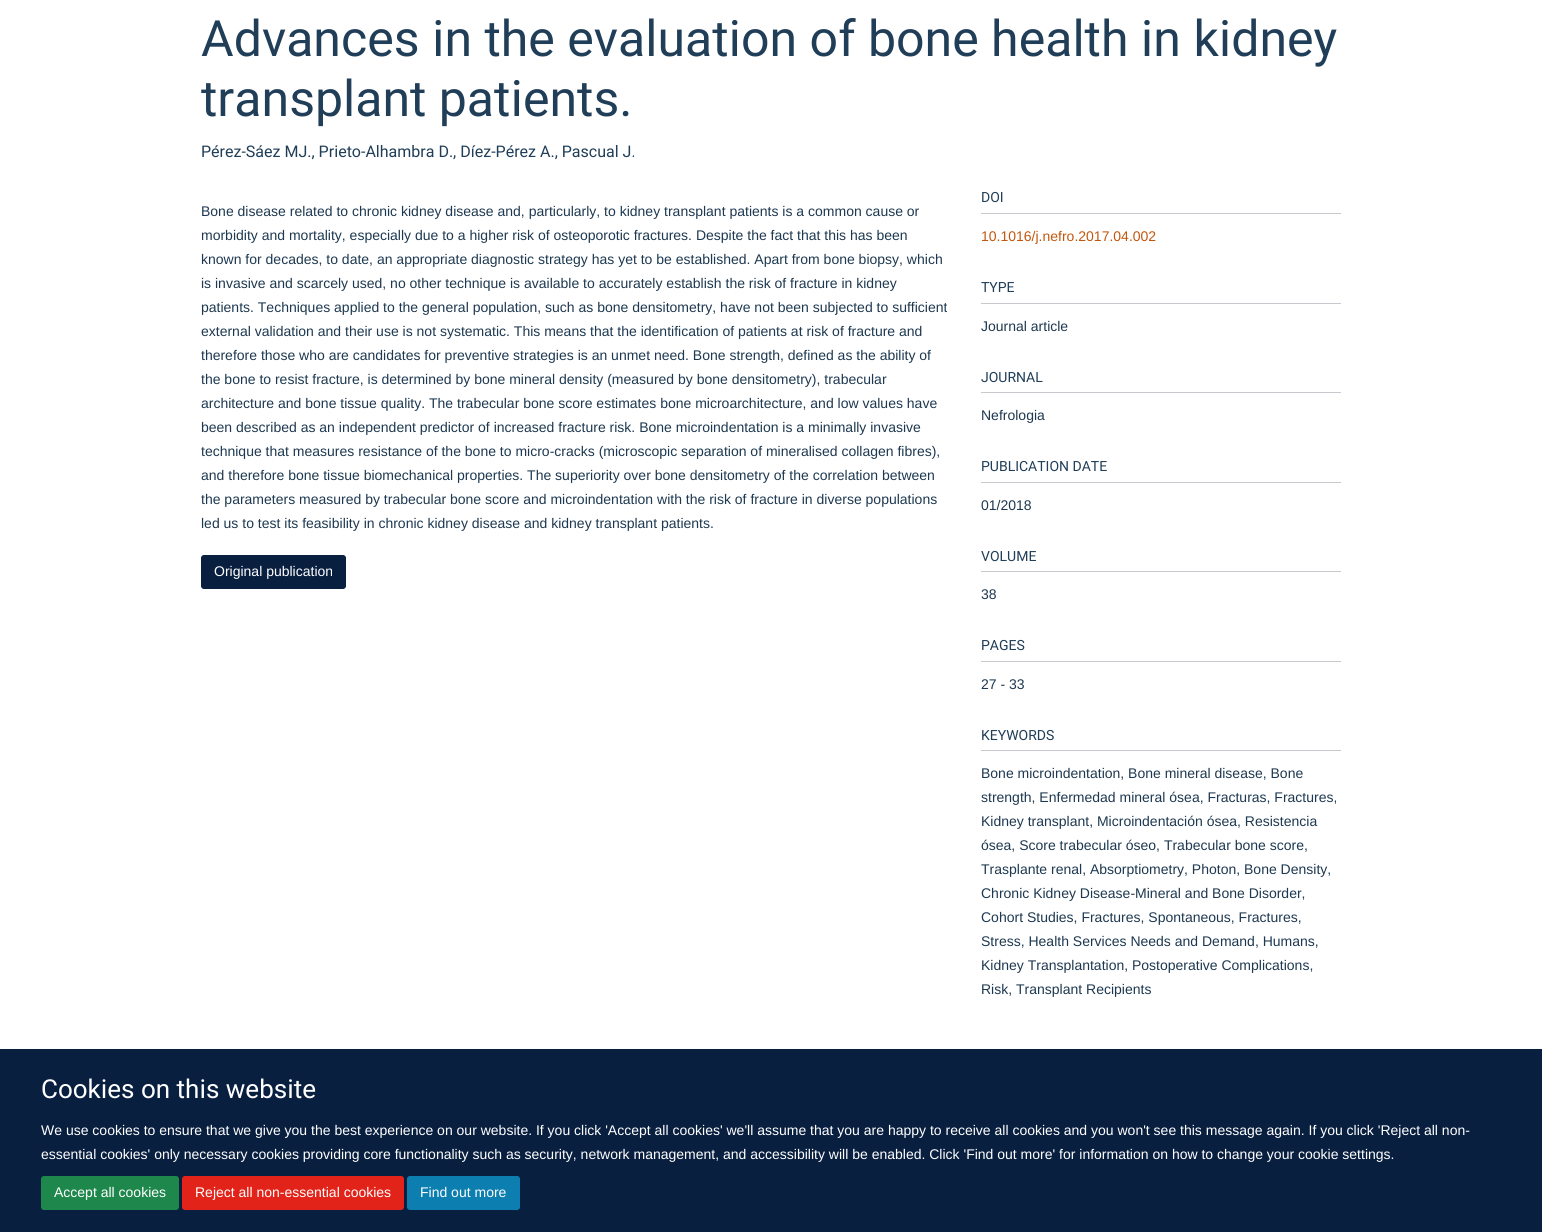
#include <cairo/cairo.h>
#include <math.h>
#include <stddef.h>


static void rounded_rect(cairo_t *cr, double x, double y, double w, double h, double r) {
  cairo_new_sub_path(cr);
  cairo_arc(cr, x + w - r, y + h - r, r, 0, M_PI / 2);
  cairo_arc(cr, x + r, y + h - r, r, M_PI / 2, M_PI);
  cairo_arc(cr, x + r, y + r, r, M_PI, 1.5 * M_PI);
  cairo_arc(cr, x + w - r, y + r, r, 1.5 * M_PI, 2 * M_PI);
  cairo_close_path(cr);
}

static void draw(cairo_t *cr) {
  cairo_set_source_rgb(cr, 1, 1, 1);
  cairo_paint(cr);
  cairo_set_source_rgb(cr, 9 / 255.0, 31 / 255.0, 64 / 255.0);
  rounded_rect(cr, 201.5, 555.5, 144, 33, 2.5);
  cairo_fill_preserve(cr);
  cairo_set_line_width(cr, 1);
  cairo_stroke(cr);
  cairo_set_source_rgb(cr, 198 / 255.0, 202 / 255.0, 207 / 255.0);
  cairo_rectangle(cr, 981, 213, 360, 1);
  cairo_fill(cr);
  cairo_rectangle(cr, 981, 303, 360, 1);
  cairo_fill(cr);
  cairo_rectangle(cr, 981, 392, 360, 1);
  cairo_fill(cr);
  cairo_rectangle(cr, 981, 482, 360, 1);
  cairo_fill(cr);
  cairo_rectangle(cr, 981, 571, 360, 1);
  cairo_fill(cr);
  cairo_rectangle(cr, 981, 661, 360, 1);
  cairo_fill(cr);
  cairo_rectangle(cr, 981, 750, 360, 1);
  cairo_fill(cr);
  cairo_set_source_rgb(cr, 9 / 255.0, 31 / 255.0, 64 / 255.0);
  cairo_rectangle(cr, 0, 1049, 1542, 183);
  cairo_fill(cr);
  cairo_set_source_rgb(cr, 30 / 255.0, 135 / 255.0, 75 / 255.0);
  rounded_rect(cr, 41.5, 1176.5, 137, 33, 2.5);
  cairo_fill_preserve(cr);
  cairo_stroke(cr);
  cairo_set_source_rgb(cr, 226 / 255.0, 35 / 255.0, 26 / 255.0);
  rounded_rect(cr, 182.5, 1176.5, 221, 33, 2.5);
  cairo_fill_preserve(cr);
  cairo_stroke(cr);
  cairo_set_source_rgb(cr, 13 / 255.0, 126 / 255.0, 176 / 255.0);
  rounded_rect(cr, 407.5, 1176.5, 112, 33, 2.5);
  cairo_fill_preserve(cr);
  cairo_stroke(cr);
  cairo_select_font_face(cr, "Heebo", CAIRO_FONT_SLANT_NORMAL, CAIRO_FONT_WEIGHT_NORMAL);
  cairo_set_font_size(cr, 50);
  cairo_set_source_rgb(cr, 32 / 255.0, 62 / 255.0, 88 / 255.0);
  cairo_move_to(cr, 201, 56);
  cairo_show_text(cr, "Advances in the evaluation of bone health in kidney");
  cairo_move_to(cr, 201, 116);
  cairo_show_text(cr, "transplant patients.");
  cairo_set_font_size(cr, 16);
  cairo_move_to(cr, 201, 157);
  cairo_show_text(cr, "Pérez-Sáez MJ., Prieto-Alhambra D., Díez-Pérez A., Pascual J.");
  cairo_select_font_face(cr, "Liberation Sans", CAIRO_FONT_SLANT_NORMAL, CAIRO_FONT_WEIGHT_NORMAL);
  cairo_set_font_size(cr, 14);
  cairo_set_source_rgb(cr, 29 / 255.0, 56 / 255.0, 80 / 255.0);
  cairo_move_to(cr, 201, 216);
  cairo_show_text(cr, "Bone disease related to chronic kidney disease and, particularly, to kidney transplant patients is a common cause or");
  cairo_move_to(cr, 201, 240);
  cairo_show_text(cr, "morbidity and mortality, especially due to a higher risk of osteoporotic fractures. Despite the fact that this has been");
  cairo_move_to(cr, 201, 264);
  cairo_show_text(cr, "known for decades, to date, an appropriate diagnostic strategy has yet to be established. Apart from bone biopsy, which");
  cairo_move_to(cr, 201, 288);
  cairo_show_text(cr, "is invasive and scarcely used, no other technique is available to accurately establish the risk of fracture in kidney");
  cairo_move_to(cr, 201, 312);
  cairo_show_text(cr, "patients. Techniques applied to the general population, such as bone densitometry, have not been subjected to sufficient");
  cairo_move_to(cr, 201, 336);
  cairo_show_text(cr, "external validation and their use is not systematic. This means that the identification of patients at risk of fracture and");
  cairo_move_to(cr, 201, 360);
  cairo_show_text(cr, "therefore those who are candidates for preventive strategies is an unmet need. Bone strength, defined as the ability of");
  cairo_move_to(cr, 201, 384);
  cairo_show_text(cr, "the bone to resist fracture, is determined by bone mineral density (measured by bone densitometry), trabecular");
  cairo_move_to(cr, 201, 408);
  cairo_show_text(cr, "architecture and bone tissue quality. The trabecular bone score estimates bone microarchitecture, and low values have");
  cairo_move_to(cr, 201, 432);
  cairo_show_text(cr, "been described as an independent predictor of increased fracture risk. Bone microindentation is a minimally invasive");
  cairo_move_to(cr, 201, 456);
  cairo_show_text(cr, "technique that measures resistance of the bone to micro-cracks (microscopic separation of mineralised collagen fibres),");
  cairo_move_to(cr, 201, 480);
  cairo_show_text(cr, "and therefore bone tissue biomechanical properties. The superiority over bone densitometry of the correlation between");
  cairo_move_to(cr, 201, 504);
  cairo_show_text(cr, "the parameters measured by trabecular bone score and microindentation with the risk of fracture in diverse populations");
  cairo_move_to(cr, 201, 528);
  cairo_show_text(cr, "led us to test its feasibility in chronic kidney disease and kidney transplant patients.");
  cairo_set_source_rgb(cr, 1, 1, 1);
  cairo_move_to(cr, 214, 576);
  cairo_show_text(cr, "Original publication");
  cairo_select_font_face(cr, "Heebo", CAIRO_FONT_SLANT_NORMAL, CAIRO_FONT_WEIGHT_NORMAL);
  cairo_set_source_rgb(cr, 32 / 255.0, 62 / 255.0, 88 / 255.0);
  cairo_move_to(cr, 981, 202);
  cairo_show_text(cr, "DOI");
  cairo_select_font_face(cr, "Liberation Sans", CAIRO_FONT_SLANT_NORMAL, CAIRO_FONT_WEIGHT_NORMAL);
  cairo_set_source_rgb(cr, 193 / 255.0, 87 / 255.0, 14 / 255.0);
  cairo_move_to(cr, 981, 241);
  cairo_show_text(cr, "10.1016/j.nefro.2017.04.002");
  cairo_select_font_face(cr, "Heebo", CAIRO_FONT_SLANT_NORMAL, CAIRO_FONT_WEIGHT_NORMAL);
  cairo_set_source_rgb(cr, 32 / 255.0, 62 / 255.0, 88 / 255.0);
  cairo_move_to(cr, 981, 292);
  cairo_show_text(cr, "TYPE");
  cairo_select_font_face(cr, "Liberation Sans", CAIRO_FONT_SLANT_NORMAL, CAIRO_FONT_WEIGHT_NORMAL);
  cairo_set_source_rgb(cr, 29 / 255.0, 56 / 255.0, 80 / 255.0);
  cairo_move_to(cr, 981, 331);
  cairo_show_text(cr, "Journal article");
  cairo_select_font_face(cr, "Heebo", CAIRO_FONT_SLANT_NORMAL, CAIRO_FONT_WEIGHT_NORMAL);
  cairo_set_source_rgb(cr, 32 / 255.0, 62 / 255.0, 88 / 255.0);
  cairo_move_to(cr, 981, 382);
  cairo_show_text(cr, "JOURNAL");
  cairo_select_font_face(cr, "Liberation Sans", CAIRO_FONT_SLANT_NORMAL, CAIRO_FONT_WEIGHT_NORMAL);
  cairo_set_source_rgb(cr, 29 / 255.0, 56 / 255.0, 80 / 255.0);
  cairo_move_to(cr, 981, 420);
  cairo_show_text(cr, "Nefrologia");
  cairo_select_font_face(cr, "Heebo", CAIRO_FONT_SLANT_NORMAL, CAIRO_FONT_WEIGHT_NORMAL);
  cairo_set_source_rgb(cr, 32 / 255.0, 62 / 255.0, 88 / 255.0);
  cairo_move_to(cr, 981, 471);
  cairo_show_text(cr, "PUBLICATION DATE");
  cairo_select_font_face(cr, "Liberation Sans", CAIRO_FONT_SLANT_NORMAL, CAIRO_FONT_WEIGHT_NORMAL);
  cairo_set_source_rgb(cr, 29 / 255.0, 56 / 255.0, 80 / 255.0);
  cairo_move_to(cr, 981, 510);
  cairo_show_text(cr, "01/2018");
  cairo_select_font_face(cr, "Heebo", CAIRO_FONT_SLANT_NORMAL, CAIRO_FONT_WEIGHT_NORMAL);
  cairo_set_source_rgb(cr, 32 / 255.0, 62 / 255.0, 88 / 255.0);
  cairo_move_to(cr, 981, 561);
  cairo_show_text(cr, "VOLUME");
  cairo_select_font_face(cr, "Liberation Sans", CAIRO_FONT_SLANT_NORMAL, CAIRO_FONT_WEIGHT_NORMAL);
  cairo_set_source_rgb(cr, 29 / 255.0, 56 / 255.0, 80 / 255.0);
  cairo_move_to(cr, 981, 599);
  cairo_show_text(cr, "38");
  cairo_select_font_face(cr, "Heebo", CAIRO_FONT_SLANT_NORMAL, CAIRO_FONT_WEIGHT_NORMAL);
  cairo_set_source_rgb(cr, 32 / 255.0, 62 / 255.0, 88 / 255.0);
  cairo_move_to(cr, 981, 650);
  cairo_show_text(cr, "PAGES");
  cairo_select_font_face(cr, "Liberation Sans", CAIRO_FONT_SLANT_NORMAL, CAIRO_FONT_WEIGHT_NORMAL);
  cairo_set_source_rgb(cr, 29 / 255.0, 56 / 255.0, 80 / 255.0);
  cairo_move_to(cr, 981, 689);
  cairo_show_text(cr, "27 - 33");
  cairo_select_font_face(cr, "Heebo", CAIRO_FONT_SLANT_NORMAL, CAIRO_FONT_WEIGHT_NORMAL);
  cairo_set_source_rgb(cr, 32 / 255.0, 62 / 255.0, 88 / 255.0);
  cairo_move_to(cr, 981, 740);
  cairo_show_text(cr, "KEYWORDS");
  cairo_select_font_face(cr, "Liberation Sans", CAIRO_FONT_SLANT_NORMAL, CAIRO_FONT_WEIGHT_NORMAL);
  cairo_set_source_rgb(cr, 29 / 255.0, 56 / 255.0, 80 / 255.0);
  cairo_move_to(cr, 981, 778);
  cairo_show_text(cr, "Bone microindentation, Bone mineral disease, Bone");
  cairo_move_to(cr, 981, 802);
  cairo_show_text(cr, "strength, Enfermedad mineral ósea, Fracturas, Fractures,");
  cairo_move_to(cr, 981, 826);
  cairo_show_text(cr, "Kidney transplant, Microindentación ósea, Resistencia");
  cairo_move_to(cr, 981, 850);
  cairo_show_text(cr, "ósea, Score trabecular óseo, Trabecular bone score,");
  cairo_move_to(cr, 981, 874);
  cairo_show_text(cr, "Trasplante renal, Absorptiometry, Photon, Bone Density,");
  cairo_move_to(cr, 981, 898);
  cairo_show_text(cr, "Chronic Kidney Disease-Mineral and Bone Disorder,");
  cairo_move_to(cr, 981, 922);
  cairo_show_text(cr, "Cohort Studies, Fractures, Spontaneous, Fractures,");
  cairo_move_to(cr, 981, 946);
  cairo_show_text(cr, "Stress, Health Services Needs and Demand, Humans,");
  cairo_move_to(cr, 981, 970);
  cairo_show_text(cr, "Kidney Transplantation, Postoperative Complications,");
  cairo_move_to(cr, 981, 994);
  cairo_show_text(cr, "Risk, Transplant Recipients");
  cairo_select_font_face(cr, "Heebo", CAIRO_FONT_SLANT_NORMAL, CAIRO_FONT_WEIGHT_NORMAL);
  cairo_set_font_size(cr, 26);
  cairo_set_source_rgb(cr, 1, 1, 1);
  cairo_move_to(cr, 41, 1098);
  cairo_show_text(cr, "Cookies on this website");
  cairo_select_font_face(cr, "Liberation Sans", CAIRO_FONT_SLANT_NORMAL, CAIRO_FONT_WEIGHT_NORMAL);
  cairo_set_font_size(cr, 14);
  cairo_move_to(cr, 41, 1135);
  cairo_show_text(cr, "We use cookies to ensure that we give you the best experience on our website. If you click 'Accept all cookies' we'll assume that you are happy to receive all cookies and you won't see this message again. If you click 'Reject all non-");
  cairo_move_to(cr, 41, 1159);
  cairo_show_text(cr, "essential cookies' only necessary cookies providing core functionality such as security, network management, and accessibility will be enabled. Click 'Find out more' for information on how to change your cookie settings.");
  cairo_move_to(cr, 54, 1197);
  cairo_show_text(cr, "Accept all cookies");
  cairo_move_to(cr, 195, 1197);
  cairo_show_text(cr, "Reject all non-essential cookies");
  cairo_move_to(cr, 420, 1197);
  cairo_show_text(cr, "Find out more");
}

int main(void) {
  cairo_surface_t *surface = cairo_image_surface_create(CAIRO_FORMAT_RGB24, 1542, 1232);
  cairo_t *cr = cairo_create(surface);
  cairo_font_options_t *options = cairo_font_options_create();
  cairo_font_options_set_hint_metrics(options, CAIRO_HINT_METRICS_OFF);
  cairo_font_options_set_hint_style(options, CAIRO_HINT_STYLE_NONE);
  cairo_set_font_options(cr, options);
  cairo_set_miter_limit(cr, 4);
  draw(cr);
  cairo_surface_write_to_png(surface, "out.png");
  cairo_font_options_destroy(options);
  cairo_destroy(cr);
  cairo_surface_destroy(surface);
  return 0;
}
